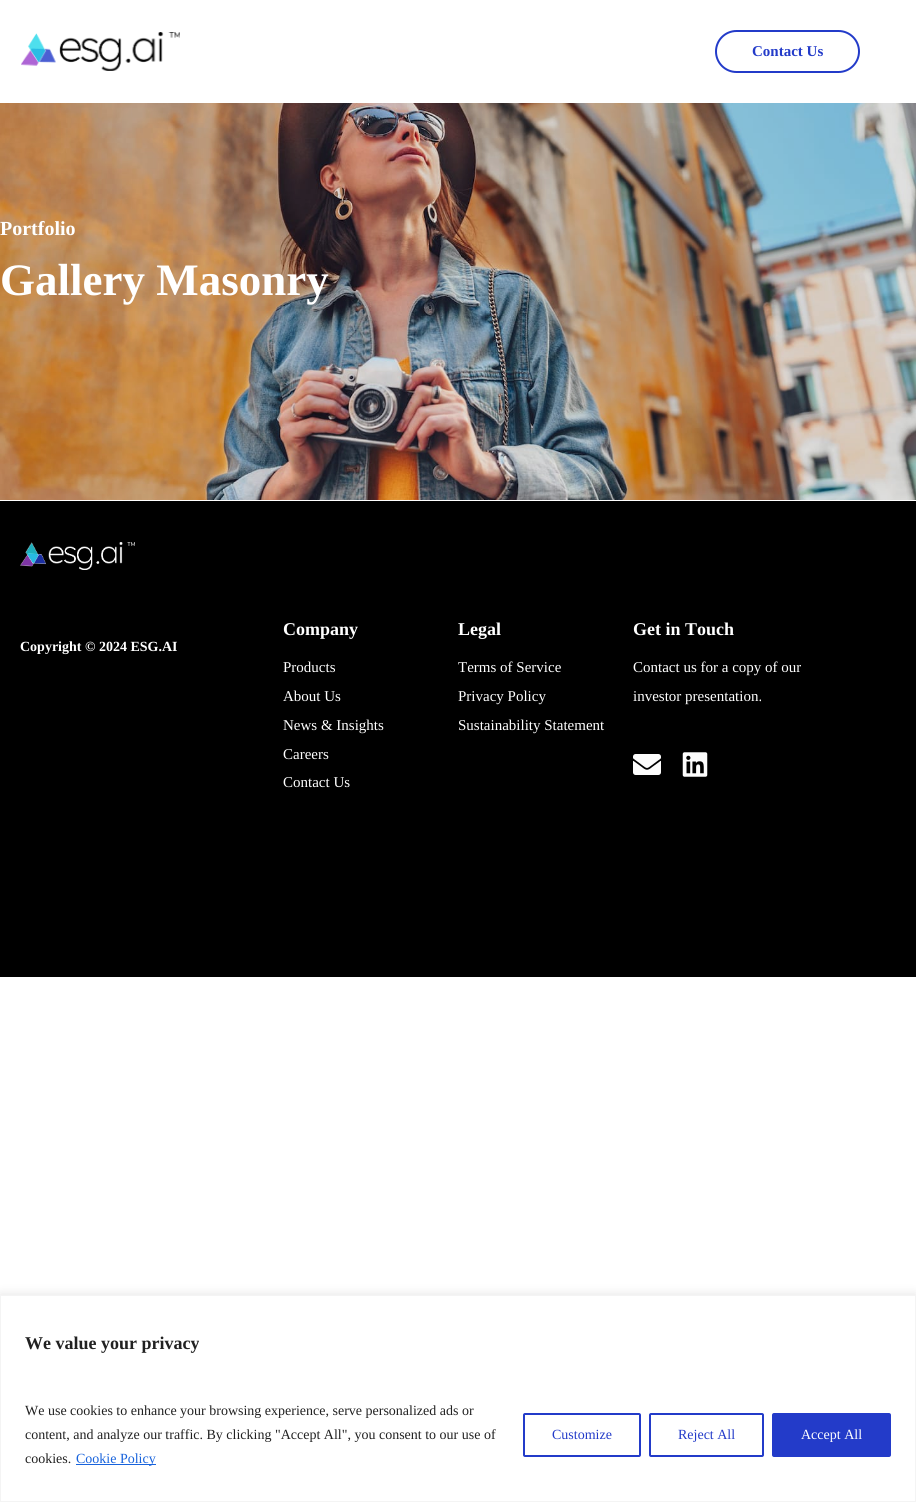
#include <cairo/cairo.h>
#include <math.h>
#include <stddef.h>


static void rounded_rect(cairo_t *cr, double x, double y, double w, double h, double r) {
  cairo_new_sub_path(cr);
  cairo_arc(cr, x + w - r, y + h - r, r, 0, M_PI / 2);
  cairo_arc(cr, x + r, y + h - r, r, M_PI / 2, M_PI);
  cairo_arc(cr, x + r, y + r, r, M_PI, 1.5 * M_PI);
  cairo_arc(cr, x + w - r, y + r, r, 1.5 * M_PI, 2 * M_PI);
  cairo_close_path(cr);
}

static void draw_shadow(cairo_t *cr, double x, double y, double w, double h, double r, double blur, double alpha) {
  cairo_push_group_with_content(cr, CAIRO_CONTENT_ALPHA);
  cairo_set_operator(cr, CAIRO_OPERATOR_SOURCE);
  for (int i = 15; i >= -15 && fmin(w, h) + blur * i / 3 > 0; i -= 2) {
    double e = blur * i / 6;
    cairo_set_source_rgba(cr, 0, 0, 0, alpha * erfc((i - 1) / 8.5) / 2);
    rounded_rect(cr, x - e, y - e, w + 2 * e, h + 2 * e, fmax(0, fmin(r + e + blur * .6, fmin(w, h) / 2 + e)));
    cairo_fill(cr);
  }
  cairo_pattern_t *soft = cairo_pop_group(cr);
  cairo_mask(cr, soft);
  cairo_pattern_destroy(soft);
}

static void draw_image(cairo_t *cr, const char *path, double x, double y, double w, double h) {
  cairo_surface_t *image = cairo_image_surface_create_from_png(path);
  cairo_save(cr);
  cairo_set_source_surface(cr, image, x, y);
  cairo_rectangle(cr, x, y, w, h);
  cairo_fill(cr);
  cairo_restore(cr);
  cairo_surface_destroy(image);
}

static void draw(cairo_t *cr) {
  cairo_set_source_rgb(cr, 1, 1, 1);
  cairo_paint(cr);
  draw_image(cr, "images/1.png", 21, 32, 159, 39);
  rounded_rect(cr, 716, 31, 143, 41, 20.5);
  cairo_set_source_rgb(cr, 35 / 255.0, 59 / 255.0, 201 / 255.0);
  cairo_stroke(cr);
  draw_image(cr, "images/2.png", 0, 103, 916, 397);
  cairo_set_source_rgb(cr, 0, 0, 0);
  cairo_rectangle(cr, 0, 501, 916, 476);
  cairo_fill(cr);
  draw_image(cr, "images/3.png", 20, 542, 115, 28);
  draw_image(cr, "images/4.png", 633, 754, 28, 21);
  draw_image(cr, "images/5.png", 682, 752, 26, 25);
  cairo_set_source_rgb(cr, 172 / 255.0, 171 / 255.0, 171 / 255.0);
  draw_shadow(cr, 0, 1294, 916, 207, 0, 5, 0.3);
  cairo_set_source_rgb(cr, 1, 1, 1);
  cairo_rectangle(cr, 0.5, 1295.5, 915, 206);
  cairo_fill_preserve(cr);
  cairo_set_source_rgb(cr, 244 / 255.0, 244 / 255.0, 244 / 255.0);
  cairo_set_line_width(cr, 1);
  cairo_stroke(cr);
  cairo_set_source_rgb(cr, 24 / 255.0, 99 / 255.0, 220 / 255.0);
  cairo_rectangle(cr, 76, 1464, 80, 1);
  cairo_fill(cr);
  rounded_rect(cr, 524, 1414, 116, 42, 1);
  cairo_set_source_rgb(cr, 35 / 255.0, 59 / 255.0, 201 / 255.0);
  cairo_set_line_width(cr, 2);
  cairo_stroke(cr);
  rounded_rect(cr, 650, 1414, 113, 42, 1);
  cairo_stroke(cr);
  rounded_rect(cr, 773, 1414, 117, 42, 1);
  cairo_fill_preserve(cr);
  cairo_stroke(cr);
  cairo_select_font_face(cr, "Liberation Serif", CAIRO_FONT_SLANT_NORMAL, CAIRO_FONT_WEIGHT_BOLD);
  cairo_set_font_size(cr, 15);
  cairo_move_to(cr, 752, 56);
  cairo_show_text(cr, "Contact Us");
  cairo_set_font_size(cr, 20);
  cairo_set_source_rgb(cr, 1, 1, 1);
  cairo_move_to(cr, 0, 235);
  cairo_show_text(cr, "Portfolio");
  cairo_set_font_size(cr, 45);
  cairo_move_to(cr, 0, 295);
  cairo_show_text(cr, "Gallery Masonry");
  cairo_set_font_size(cr, 14);
  cairo_move_to(cr, 20, 651);
  cairo_show_text(cr, "Copyright © 2024 ESG.AI");
  cairo_set_font_size(cr, 18);
  cairo_move_to(cr, 283, 635);
  cairo_show_text(cr, "Company");
  cairo_select_font_face(cr, "Liberation Serif", CAIRO_FONT_SLANT_NORMAL, CAIRO_FONT_WEIGHT_NORMAL);
  cairo_set_font_size(cr, 15);
  cairo_move_to(cr, 283, 672);
  cairo_show_text(cr, "Products");
  cairo_move_to(cr, 283, 701);
  cairo_show_text(cr, "About Us");
  cairo_move_to(cr, 283, 730);
  cairo_show_text(cr, "News & Insights");
  cairo_move_to(cr, 283, 759);
  cairo_show_text(cr, "Careers");
  cairo_move_to(cr, 283, 787);
  cairo_show_text(cr, "Contact Us");
  cairo_select_font_face(cr, "Liberation Serif", CAIRO_FONT_SLANT_NORMAL, CAIRO_FONT_WEIGHT_BOLD);
  cairo_set_font_size(cr, 18);
  cairo_move_to(cr, 458, 635);
  cairo_show_text(cr, "Legal");
  cairo_select_font_face(cr, "Liberation Serif", CAIRO_FONT_SLANT_NORMAL, CAIRO_FONT_WEIGHT_NORMAL);
  cairo_set_font_size(cr, 15);
  cairo_move_to(cr, 458, 672);
  cairo_show_text(cr, "Terms of Service");
  cairo_move_to(cr, 458, 701);
  cairo_show_text(cr, "Privacy Policy");
  cairo_move_to(cr, 458, 730);
  cairo_show_text(cr, "Sustainability Statement");
  cairo_select_font_face(cr, "Liberation Serif", CAIRO_FONT_SLANT_NORMAL, CAIRO_FONT_WEIGHT_BOLD);
  cairo_set_font_size(cr, 18);
  cairo_move_to(cr, 633, 635);
  cairo_show_text(cr, "Get in Touch");
  cairo_select_font_face(cr, "Liberation Serif", CAIRO_FONT_SLANT_NORMAL, CAIRO_FONT_WEIGHT_NORMAL);
  cairo_set_font_size(cr, 15);
  cairo_move_to(cr, 633, 672);
  cairo_show_text(cr, "Contact us for a copy of our");
  cairo_move_to(cr, 633, 701);
  cairo_show_text(cr, "investor presentation.");
  cairo_select_font_face(cr, "Liberation Serif", CAIRO_FONT_SLANT_NORMAL, CAIRO_FONT_WEIGHT_BOLD);
  cairo_set_font_size(cr, 18);
  cairo_set_source_rgb(cr, 33 / 255.0, 33 / 255.0, 33 / 255.0);
  cairo_move_to(cr, 25, 1349);
  cairo_show_text(cr, "We value your privacy");
  cairo_select_font_face(cr, "Liberation Serif", CAIRO_FONT_SLANT_NORMAL, CAIRO_FONT_WEIGHT_NORMAL);
  cairo_set_font_size(cr, 14);
  cairo_move_to(cr, 25, 1415);
  cairo_show_text(cr, "We use cookies to enhance your browsing experience, serve personalized ads or");
  cairo_move_to(cr, 25, 1439);
  cairo_show_text(cr, "content, and analyze our traffic. By clicking \"Accept All\", you consent to our use of");
  cairo_move_to(cr, 25, 1463);
  cairo_show_text(cr, "cookies.");
  cairo_set_source_rgb(cr, 24 / 255.0, 99 / 255.0, 220 / 255.0);
  cairo_move_to(cr, 76, 1463);
  cairo_show_text(cr, "Cookie Policy");
  cairo_set_source_rgb(cr, 35 / 255.0, 59 / 255.0, 201 / 255.0);
  cairo_move_to(cr, 552, 1439);
  cairo_show_text(cr, "Customize");
  cairo_move_to(cr, 678, 1439);
  cairo_show_text(cr, "Reject All");
  cairo_set_source_rgb(cr, 1, 1, 1);
  cairo_move_to(cr, 801, 1439);
  cairo_show_text(cr, "Accept All");
}

int main(void) {
  cairo_surface_t *surface = cairo_image_surface_create(CAIRO_FORMAT_RGB24, 916, 1502);
  cairo_t *cr = cairo_create(surface);
  cairo_font_options_t *options = cairo_font_options_create();
  cairo_font_options_set_hint_metrics(options, CAIRO_HINT_METRICS_OFF);
  cairo_font_options_set_hint_style(options, CAIRO_HINT_STYLE_NONE);
  cairo_set_font_options(cr, options);
  cairo_set_miter_limit(cr, 4);
  draw(cr);
  cairo_surface_write_to_png(surface, "out.png");
  cairo_font_options_destroy(options);
  cairo_destroy(cr);
  cairo_surface_destroy(surface);
  return 0;
}
